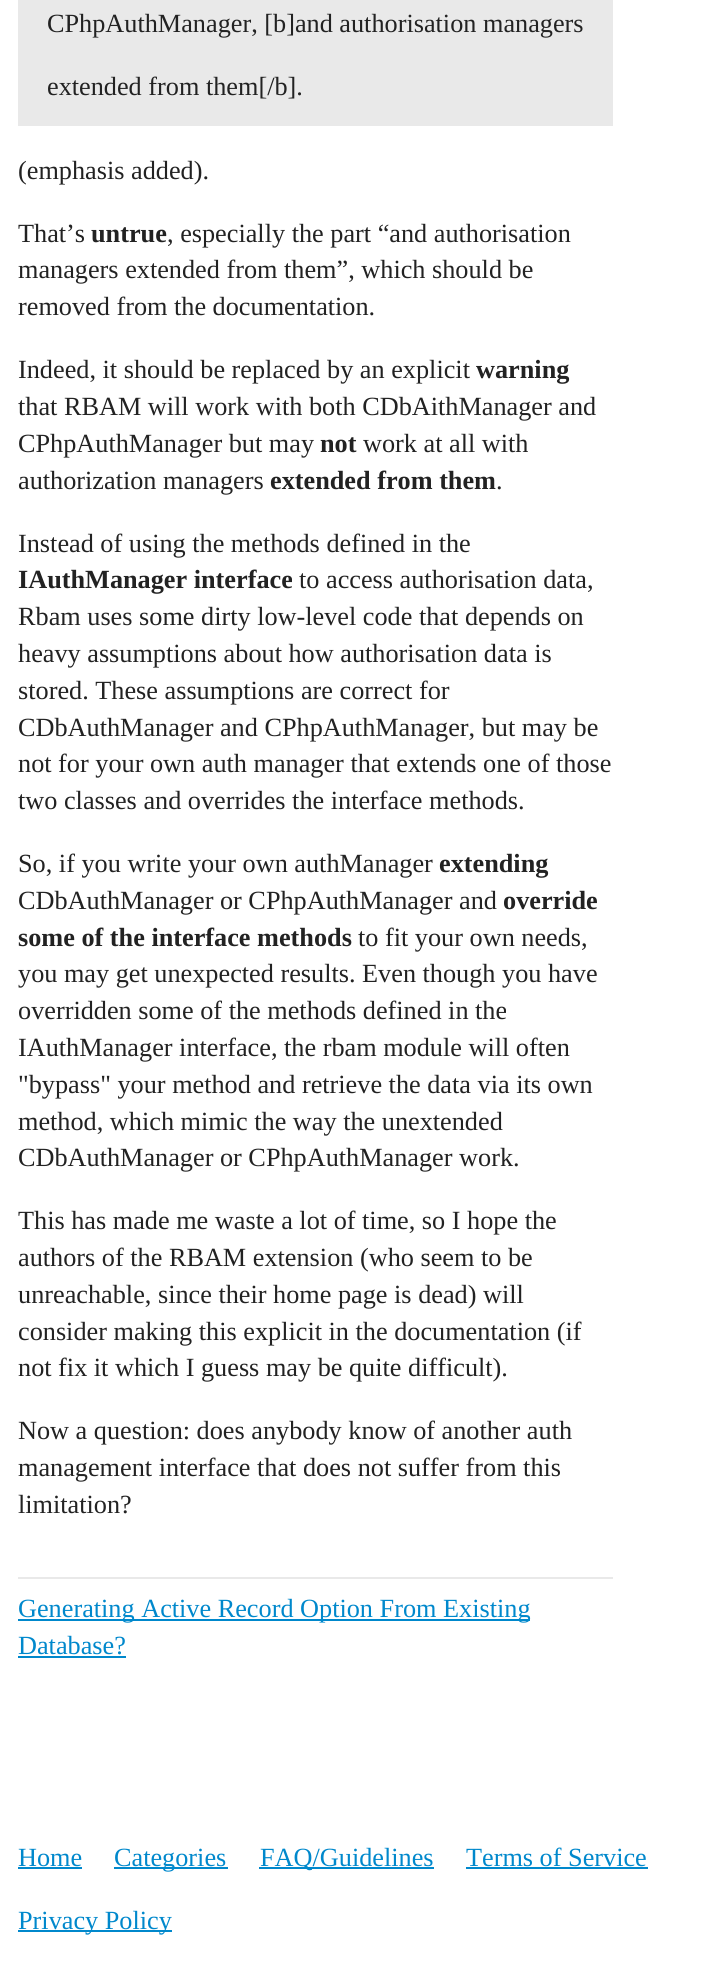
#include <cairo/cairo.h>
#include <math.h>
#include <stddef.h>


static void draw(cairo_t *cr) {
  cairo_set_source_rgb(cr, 1, 1, 1);
  cairo_paint(cr);
  cairo_set_source_rgb(cr, 233 / 255.0, 233 / 255.0, 233 / 255.0);
  cairo_rectangle(cr, 18, 0, 595, 126);
  cairo_fill(cr);
  cairo_rectangle(cr, 18, 1577, 595, 2);
  cairo_fill(cr);
  cairo_set_source_rgb(cr, 0, 136 / 255.0, 204 / 255.0);
  cairo_rectangle(cr, 18, 1619, 512, 2);
  cairo_fill(cr);
  cairo_rectangle(cr, 18, 1656, 108, 2);
  cairo_fill(cr);
  cairo_rectangle(cr, 18, 1867, 64, 2);
  cairo_fill(cr);
  cairo_rectangle(cr, 114, 1867, 114, 2);
  cairo_fill(cr);
  cairo_rectangle(cr, 259, 1867, 175, 2);
  cairo_fill(cr);
  cairo_rectangle(cr, 466, 1867, 182, 2);
  cairo_fill(cr);
  cairo_rectangle(cr, 18, 1930, 154, 2);
  cairo_fill(cr);
  cairo_select_font_face(cr, "Liberation Serif", CAIRO_FONT_SLANT_NORMAL, CAIRO_FONT_WEIGHT_NORMAL);
  cairo_set_font_size(cr, 26.25);
  cairo_set_source_rgb(cr, 34 / 255.0, 34 / 255.0, 34 / 255.0);
  cairo_move_to(cr, 47, 32);
  cairo_show_text(cr, "CPhpAuthManager, [b]and authorisation managers");
  cairo_move_to(cr, 47, 95);
  cairo_show_text(cr, "extended from them[/b].");
  cairo_move_to(cr, 18, 179);
  cairo_show_text(cr, "(emphasis added).");
  cairo_move_to(cr, 18, 242);
  cairo_show_text(cr, "That’s");
  cairo_select_font_face(cr, "Liberation Serif", CAIRO_FONT_SLANT_NORMAL, CAIRO_FONT_WEIGHT_BOLD);
  cairo_move_to(cr, 91, 242);
  cairo_show_text(cr, "untrue");
  cairo_select_font_face(cr, "Liberation Serif", CAIRO_FONT_SLANT_NORMAL, CAIRO_FONT_WEIGHT_NORMAL);
  cairo_move_to(cr, 167, 242);
  cairo_show_text(cr, ", especially the part “and authorisation");
  cairo_move_to(cr, 18, 278);
  cairo_show_text(cr, "managers extended from them”, which should be");
  cairo_move_to(cr, 18, 315);
  cairo_show_text(cr, "removed from the documentation.");
  cairo_move_to(cr, 18, 378);
  cairo_show_text(cr, "Indeed, it should be replaced by an explicit");
  cairo_select_font_face(cr, "Liberation Serif", CAIRO_FONT_SLANT_NORMAL, CAIRO_FONT_WEIGHT_BOLD);
  cairo_move_to(cr, 476, 378);
  cairo_show_text(cr, "warning");
  cairo_select_font_face(cr, "Liberation Serif", CAIRO_FONT_SLANT_NORMAL, CAIRO_FONT_WEIGHT_NORMAL);
  cairo_move_to(cr, 18, 415);
  cairo_show_text(cr, "that RBAM will work with both CDbAithManager and");
  cairo_move_to(cr, 18, 452);
  cairo_show_text(cr, "CPhpAuthManager but may");
  cairo_select_font_face(cr, "Liberation Serif", CAIRO_FONT_SLANT_NORMAL, CAIRO_FONT_WEIGHT_BOLD);
  cairo_move_to(cr, 320, 452);
  cairo_show_text(cr, "not");
  cairo_select_font_face(cr, "Liberation Serif", CAIRO_FONT_SLANT_NORMAL, CAIRO_FONT_WEIGHT_NORMAL);
  cairo_move_to(cr, 363, 452);
  cairo_show_text(cr, "work at all with");
  cairo_move_to(cr, 18, 489);
  cairo_show_text(cr, "authorization managers");
  cairo_select_font_face(cr, "Liberation Serif", CAIRO_FONT_SLANT_NORMAL, CAIRO_FONT_WEIGHT_BOLD);
  cairo_move_to(cr, 270, 489);
  cairo_show_text(cr, "extended from them");
  cairo_select_font_face(cr, "Liberation Serif", CAIRO_FONT_SLANT_NORMAL, CAIRO_FONT_WEIGHT_NORMAL);
  cairo_move_to(cr, 496, 489);
  cairo_show_text(cr, ".");
  cairo_move_to(cr, 18, 552);
  cairo_show_text(cr, "Instead of using the methods defined in the");
  cairo_select_font_face(cr, "Liberation Serif", CAIRO_FONT_SLANT_NORMAL, CAIRO_FONT_WEIGHT_BOLD);
  cairo_move_to(cr, 18, 588);
  cairo_show_text(cr, "IAuthManager interface");
  cairo_select_font_face(cr, "Liberation Serif", CAIRO_FONT_SLANT_NORMAL, CAIRO_FONT_WEIGHT_NORMAL);
  cairo_move_to(cr, 299, 588);
  cairo_show_text(cr, "to access authorisation data,");
  cairo_move_to(cr, 18, 625);
  cairo_show_text(cr, "Rbam uses some dirty low-level code that depends on");
  cairo_move_to(cr, 18, 662);
  cairo_show_text(cr, "heavy assumptions about how authorisation data is");
  cairo_move_to(cr, 18, 699);
  cairo_show_text(cr, "stored. These assumptions are correct for");
  cairo_move_to(cr, 18, 736);
  cairo_show_text(cr, "CDbAuthManager and CPhpAuthManager, but may be");
  cairo_move_to(cr, 18, 772);
  cairo_show_text(cr, "not for your own auth manager that extends one of those");
  cairo_move_to(cr, 18, 809);
  cairo_show_text(cr, "two classes and overrides the interface methods.");
  cairo_move_to(cr, 18, 872);
  cairo_show_text(cr, "So, if you write your own authManager");
  cairo_select_font_face(cr, "Liberation Serif", CAIRO_FONT_SLANT_NORMAL, CAIRO_FONT_WEIGHT_BOLD);
  cairo_move_to(cr, 439, 872);
  cairo_show_text(cr, "extending");
  cairo_select_font_face(cr, "Liberation Serif", CAIRO_FONT_SLANT_NORMAL, CAIRO_FONT_WEIGHT_NORMAL);
  cairo_move_to(cr, 18, 909);
  cairo_show_text(cr, "CDbAuthManager or CPhpAuthManager and");
  cairo_select_font_face(cr, "Liberation Serif", CAIRO_FONT_SLANT_NORMAL, CAIRO_FONT_WEIGHT_BOLD);
  cairo_move_to(cr, 503, 909);
  cairo_show_text(cr, "override");
  cairo_move_to(cr, 18, 946);
  cairo_show_text(cr, "some of the interface methods");
  cairo_select_font_face(cr, "Liberation Serif", CAIRO_FONT_SLANT_NORMAL, CAIRO_FONT_WEIGHT_NORMAL);
  cairo_move_to(cr, 358, 946);
  cairo_show_text(cr, "to fit your own needs,");
  cairo_move_to(cr, 18, 982);
  cairo_show_text(cr, "you may get unexpected results. Even though you have");
  cairo_move_to(cr, 18, 1019);
  cairo_show_text(cr, "overridden some of the methods defined in the");
  cairo_move_to(cr, 18, 1056);
  cairo_show_text(cr, "IAuthManager interface, the rbam module will often");
  cairo_move_to(cr, 18, 1093);
  cairo_show_text(cr, "\"bypass\" your method and retrieve the data via its own");
  cairo_move_to(cr, 18, 1130);
  cairo_show_text(cr, "method, which mimic the way the unextended");
  cairo_move_to(cr, 18, 1166);
  cairo_show_text(cr, "CDbAuthManager or CPhpAuthManager work.");
  cairo_move_to(cr, 18, 1229);
  cairo_show_text(cr, "This has made me waste a lot of time, so I hope the");
  cairo_move_to(cr, 18, 1266);
  cairo_show_text(cr, "authors of the RBAM extension (who seem to be");
  cairo_move_to(cr, 18, 1303);
  cairo_show_text(cr, "unreachable, since their home page is dead) will");
  cairo_move_to(cr, 18, 1340);
  cairo_show_text(cr, "consider making this explicit in the documentation (if");
  cairo_move_to(cr, 18, 1376);
  cairo_show_text(cr, "not fix it which I guess may be quite difficult).");
  cairo_move_to(cr, 18, 1439);
  cairo_show_text(cr, "Now a question: does anybody know of another auth");
  cairo_move_to(cr, 18, 1476);
  cairo_show_text(cr, "management interface that does not suffer from this");
  cairo_move_to(cr, 18, 1513);
  cairo_show_text(cr, "limitation?");
  cairo_set_source_rgb(cr, 0, 136 / 255.0, 204 / 255.0);
  cairo_move_to(cr, 18, 1617);
  cairo_show_text(cr, "Generating Active Record Option From Existing");
  cairo_move_to(cr, 18, 1654);
  cairo_show_text(cr, "Database?");
  cairo_move_to(cr, 18, 1866);
  cairo_show_text(cr, "Home");
  cairo_move_to(cr, 114, 1866);
  cairo_show_text(cr, "Categories");
  cairo_move_to(cr, 260, 1866);
  cairo_show_text(cr, "FAQ/Guidelines");
  cairo_move_to(cr, 466, 1866);
  cairo_show_text(cr, "Terms of Service");
  cairo_move_to(cr, 18, 1929);
  cairo_show_text(cr, "Privacy Policy");
}

int main(void) {
  cairo_surface_t *surface = cairo_image_surface_create(CAIRO_FORMAT_RGB24, 712, 1967);
  cairo_t *cr = cairo_create(surface);
  cairo_font_options_t *options = cairo_font_options_create();
  cairo_font_options_set_hint_metrics(options, CAIRO_HINT_METRICS_OFF);
  cairo_font_options_set_hint_style(options, CAIRO_HINT_STYLE_NONE);
  cairo_set_font_options(cr, options);
  cairo_set_miter_limit(cr, 4);
  draw(cr);
  cairo_surface_write_to_png(surface, "out.png");
  cairo_font_options_destroy(options);
  cairo_destroy(cr);
  cairo_surface_destroy(surface);
  return 0;
}
